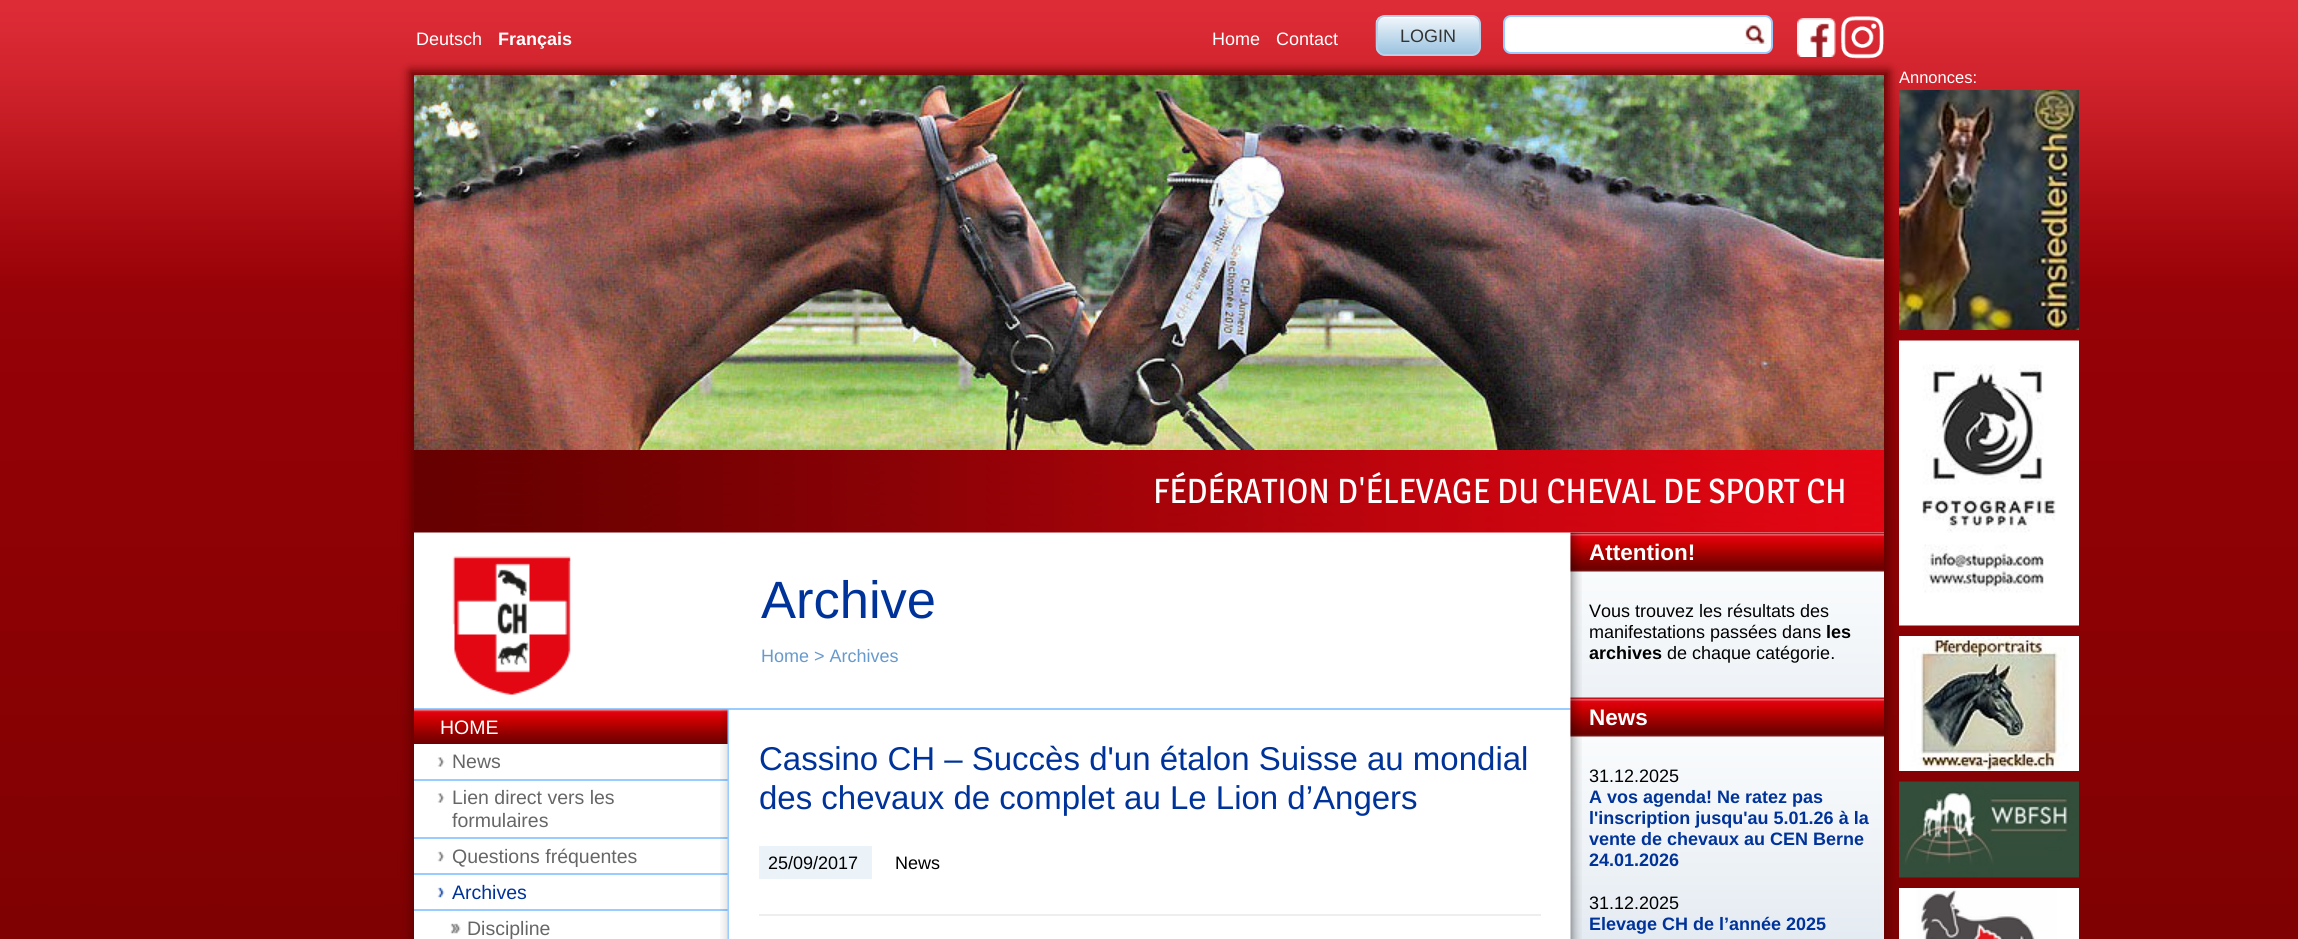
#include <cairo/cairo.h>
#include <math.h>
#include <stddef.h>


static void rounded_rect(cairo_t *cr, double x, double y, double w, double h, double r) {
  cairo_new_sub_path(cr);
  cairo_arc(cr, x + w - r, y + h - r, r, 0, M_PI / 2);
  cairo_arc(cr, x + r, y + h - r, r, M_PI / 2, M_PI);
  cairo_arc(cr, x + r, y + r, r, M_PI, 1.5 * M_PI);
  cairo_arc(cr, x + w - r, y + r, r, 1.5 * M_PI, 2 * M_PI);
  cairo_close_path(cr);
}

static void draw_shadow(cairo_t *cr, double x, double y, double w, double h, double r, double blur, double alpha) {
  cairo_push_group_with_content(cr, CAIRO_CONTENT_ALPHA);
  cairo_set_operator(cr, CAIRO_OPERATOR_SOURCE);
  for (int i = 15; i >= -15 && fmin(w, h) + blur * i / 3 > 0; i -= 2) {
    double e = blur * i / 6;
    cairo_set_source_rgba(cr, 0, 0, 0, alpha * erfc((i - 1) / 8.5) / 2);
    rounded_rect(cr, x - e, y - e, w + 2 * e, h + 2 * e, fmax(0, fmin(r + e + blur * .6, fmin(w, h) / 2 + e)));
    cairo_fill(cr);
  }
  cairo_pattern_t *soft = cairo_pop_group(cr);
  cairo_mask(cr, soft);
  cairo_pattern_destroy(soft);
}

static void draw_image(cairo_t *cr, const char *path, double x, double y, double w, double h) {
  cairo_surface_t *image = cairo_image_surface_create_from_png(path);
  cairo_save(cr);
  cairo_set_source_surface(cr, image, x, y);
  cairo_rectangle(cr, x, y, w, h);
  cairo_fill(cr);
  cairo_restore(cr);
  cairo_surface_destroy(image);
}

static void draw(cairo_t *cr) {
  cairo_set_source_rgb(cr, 1, 1, 1);
  cairo_paint(cr);
  draw_image(cr, "images/1.png", 0, 0, 2298, 939);
  cairo_set_source_rgb(cr, 99 / 255.0, 1 / 255.0, 0);
  draw_shadow(cr, 410, 71, 1479, 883, 0, 5, 1);
  draw_image(cr, "images/2.png", 1375, 16, 106, 40);
  cairo_set_source_rgb(cr, 1, 1, 1);
  cairo_new_path(cr);
  cairo_move_to(cr, 1384, 18);
  cairo_line_to(cr, 1472, 18);
  cairo_curve_to(cr, 1476, 18, 1479, 21, 1479, 26);
  cairo_curve_to(cr, 1479, 14, 1465, 17, 1457, 17);
  cairo_line_to(cr, 1399, 17);
  cairo_curve_to(cr, 1391, 17, 1377, 14, 1377, 26);
  cairo_curve_to(cr, 1377, 21, 1380, 18, 1384, 18);
  cairo_close_path(cr);
  cairo_fill(cr);
  rounded_rect(cr, 1377, 16, 103, 39, 8);
  cairo_set_source_rgb(cr, 187 / 255.0, 206 / 255.0, 232 / 255.0);
  cairo_stroke(cr);
  cairo_set_source_rgb(cr, 1, 1, 1);
  rounded_rect(cr, 1504, 16, 268, 37, 7);
  cairo_fill_preserve(cr);
  cairo_set_source_rgb(cr, 153 / 255.0, 204 / 255.0, 1);
  cairo_stroke(cr);
  cairo_set_source_rgb(cr, 239 / 255.0, 239 / 255.0, 239 / 255.0);
  cairo_rectangle(cr, 1745, 43, 22, 1);
  cairo_fill(cr);
  draw_image(cr, "images/3.png", 1745, 24, 22, 20);
  draw_image(cr, "images/4.png", 1797, 18, 39, 39);
  draw_image(cr, "images/5.png", 1841, 16, 43, 43);
  draw_image(cr, "images/6.png", 1899, 90, 180, 240);
  draw_image(cr, "images/7.png", 1899, 340, 180, 286);
  draw_image(cr, "images/8.png", 1899, 636, 180, 135);
  draw_image(cr, "images/9.png", 1899, 781, 180, 97);
  draw_image(cr, "images/10.png", 1899, 888, 180, 51);
  cairo_set_source_rgb(cr, 1, 1, 1);
  cairo_rectangle(cr, 414, 532, 1470, 407);
  cairo_fill(cr);
  draw_image(cr, "images/11.png", 414, 450, 1470, 83);
  draw_image(cr, "images/12.png", 414, 75, 1470, 375);
  cairo_set_source_rgb(cr, 153 / 255.0, 204 / 255.0, 1);
  cairo_rectangle(cr, 414, 708, 1157, 2);
  cairo_fill(cr);
  draw_image(cr, "images/13.png", 452, 556, 119, 139);
  draw_image(cr, "images/14.png", 414, 709, 315, 35);
  draw_image(cr, "images/15.png", 437, 757, 8, 10);
  cairo_rectangle(cr, 414, 779, 315, 2);
  cairo_fill(cr);
  draw_image(cr, "images/15.png", 437, 793, 8, 10);
  cairo_rectangle(cr, 414, 837, 315, 2);
  cairo_fill(cr);
  draw_image(cr, "images/16.png", 437, 851, 8, 11);
  cairo_rectangle(cr, 414, 873, 315, 2);
  cairo_fill(cr);
  draw_image(cr, "images/17.png", 437, 887, 8, 11);
  cairo_rectangle(cr, 414, 909, 315, 2);
  cairo_fill(cr);
  draw_image(cr, "images/18.png", 450, 923, 11, 11);
  draw_image(cr, "images/19.png", 720, 709, 9, 230);
  cairo_set_source_rgb(cr, 235 / 255.0, 242 / 255.0, 248 / 255.0);
  cairo_rectangle(cr, 759, 846, 113, 33);
  cairo_fill(cr);
  cairo_set_source_rgb(cr, 238 / 255.0, 238 / 255.0, 238 / 255.0);
  cairo_rectangle(cr, 759, 914, 782, 2);
  cairo_fill(cr);
  draw_image(cr, "images/21.png", 1570, 532, 314, 166);
  draw_image(cr, "images/22.png", 1570, 532, 314, 40);
  draw_image(cr, "images/23.png", 1570, 697, 314, 242);
  draw_image(cr, "images/24.png", 1570, 697, 314, 40);
  draw_image(cr, "images/20.png", 1570, 532, 12, 407);
  cairo_select_font_face(cr, "Liberation Sans", CAIRO_FONT_SLANT_NORMAL, CAIRO_FONT_WEIGHT_NORMAL);
  cairo_set_font_size(cr, 18);
  cairo_set_source_rgb(cr, 1, 1, 1);
  cairo_move_to(cr, 416, 45);
  cairo_show_text(cr, "Deutsch");
  cairo_select_font_face(cr, "Liberation Sans", CAIRO_FONT_SLANT_NORMAL, CAIRO_FONT_WEIGHT_BOLD);
  cairo_move_to(cr, 498, 45);
  cairo_show_text(cr, "Français");
  cairo_select_font_face(cr, "Liberation Sans", CAIRO_FONT_SLANT_NORMAL, CAIRO_FONT_WEIGHT_NORMAL);
  cairo_move_to(cr, 1212, 45);
  cairo_show_text(cr, "Home");
  cairo_move_to(cr, 1276, 45);
  cairo_show_text(cr, "Contact");
  cairo_set_source_rgb(cr, 51 / 255.0, 51 / 255.0, 51 / 255.0);
  cairo_move_to(cr, 1400, 42);
  cairo_show_text(cr, "LOGIN");
  cairo_set_font_size(cr, 16.5);
  cairo_set_source_rgb(cr, 1, 1, 1);
  cairo_move_to(cr, 1899, 83);
  cairo_show_text(cr, "Annonces:");
  cairo_select_font_face(cr, "Magra", CAIRO_FONT_SLANT_NORMAL, CAIRO_FONT_WEIGHT_NORMAL);
  cairo_set_font_size(cr, 34.5);
  cairo_move_to(cr, 1153, 503);
  cairo_show_text(cr, "FÉDÉRATION D'ÉLEVAGE DU CHEVAL DE SPORT CH");
  cairo_select_font_face(cr, "Liberation Sans", CAIRO_FONT_SLANT_NORMAL, CAIRO_FONT_WEIGHT_NORMAL);
  cairo_set_font_size(cr, 52.5);
  cairo_set_source_rgb(cr, 0, 51 / 255.0, 153 / 255.0);
  cairo_move_to(cr, 761, 618);
  cairo_show_text(cr, "Archive");
  cairo_set_font_size(cr, 18);
  cairo_set_source_rgb(cr, 102 / 255.0, 153 / 255.0, 204 / 255.0);
  cairo_move_to(cr, 761, 662);
  cairo_show_text(cr, "Home > Archives");
  cairo_set_font_size(cr, 19.5);
  cairo_set_source_rgb(cr, 1, 1, 1);
  cairo_move_to(cr, 440, 734);
  cairo_show_text(cr, "HOME");
  cairo_set_source_rgb(cr, 102 / 255.0, 102 / 255.0, 102 / 255.0);
  cairo_move_to(cr, 452, 768);
  cairo_show_text(cr, "News");
  cairo_move_to(cr, 452, 804);
  cairo_show_text(cr, "Lien direct vers les");
  cairo_move_to(cr, 452, 827);
  cairo_show_text(cr, "formulaires");
  cairo_move_to(cr, 452, 863);
  cairo_show_text(cr, "Questions fréquentes");
  cairo_set_source_rgb(cr, 0, 51 / 255.0, 153 / 255.0);
  cairo_move_to(cr, 452, 899);
  cairo_show_text(cr, "Archives");
  cairo_set_source_rgb(cr, 102 / 255.0, 102 / 255.0, 102 / 255.0);
  cairo_move_to(cr, 467, 935);
  cairo_show_text(cr, "Discipline");
  cairo_set_font_size(cr, 33);
  cairo_set_source_rgb(cr, 0, 51 / 255.0, 153 / 255.0);
  cairo_move_to(cr, 759, 770);
  cairo_show_text(cr, "Cassino CH – Succès d'un étalon Suisse au mondial");
  cairo_move_to(cr, 759, 809);
  cairo_show_text(cr, "des chevaux de complet au Le Lion d’Angers");
  cairo_set_font_size(cr, 18);
  cairo_set_source_rgb(cr, 0, 0, 0);
  cairo_move_to(cr, 768, 869);
  cairo_show_text(cr, "25/09/2017");
  cairo_move_to(cr, 895, 869);
  cairo_show_text(cr, "News");
  cairo_select_font_face(cr, "Liberation Sans", CAIRO_FONT_SLANT_NORMAL, CAIRO_FONT_WEIGHT_BOLD);
  cairo_set_font_size(cr, 22.5);
  cairo_set_source_rgb(cr, 1, 1, 1);
  cairo_move_to(cr, 1589, 560);
  cairo_show_text(cr, "Attention!");
  cairo_select_font_face(cr, "Liberation Sans", CAIRO_FONT_SLANT_NORMAL, CAIRO_FONT_WEIGHT_NORMAL);
  cairo_set_font_size(cr, 18);
  cairo_set_source_rgb(cr, 0, 0, 0);
  cairo_move_to(cr, 1589, 617);
  cairo_show_text(cr, "Vous trouvez les résultats des");
  cairo_move_to(cr, 1589, 638);
  cairo_show_text(cr, "manifestations passées dans");
  cairo_select_font_face(cr, "Liberation Sans", CAIRO_FONT_SLANT_NORMAL, CAIRO_FONT_WEIGHT_BOLD);
  cairo_move_to(cr, 1826, 638);
  cairo_show_text(cr, "les");
  cairo_move_to(cr, 1589, 659);
  cairo_show_text(cr, "archives");
  cairo_select_font_face(cr, "Liberation Sans", CAIRO_FONT_SLANT_NORMAL, CAIRO_FONT_WEIGHT_NORMAL);
  cairo_move_to(cr, 1667, 659);
  cairo_show_text(cr, "de chaque catégorie.");
  cairo_select_font_face(cr, "Liberation Sans", CAIRO_FONT_SLANT_NORMAL, CAIRO_FONT_WEIGHT_BOLD);
  cairo_set_font_size(cr, 22.5);
  cairo_set_source_rgb(cr, 1, 1, 1);
  cairo_move_to(cr, 1589, 725);
  cairo_show_text(cr, "News");
  cairo_select_font_face(cr, "Liberation Sans", CAIRO_FONT_SLANT_NORMAL, CAIRO_FONT_WEIGHT_NORMAL);
  cairo_set_font_size(cr, 18);
  cairo_set_source_rgb(cr, 0, 0, 0);
  cairo_move_to(cr, 1589, 782);
  cairo_show_text(cr, "31.12.2025");
  cairo_select_font_face(cr, "Liberation Sans", CAIRO_FONT_SLANT_NORMAL, CAIRO_FONT_WEIGHT_BOLD);
  cairo_set_source_rgb(cr, 0, 51 / 255.0, 153 / 255.0);
  cairo_move_to(cr, 1589, 803);
  cairo_show_text(cr, "A vos agenda! Ne ratez pas");
  cairo_move_to(cr, 1589, 824);
  cairo_show_text(cr, "l'inscription jusqu'au 5.01.26 à la");
  cairo_move_to(cr, 1589, 845);
  cairo_show_text(cr, "vente de chevaux au CEN Berne");
  cairo_move_to(cr, 1589, 866);
  cairo_show_text(cr, "24.01.2026");
  cairo_select_font_face(cr, "Liberation Sans", CAIRO_FONT_SLANT_NORMAL, CAIRO_FONT_WEIGHT_NORMAL);
  cairo_set_source_rgb(cr, 0, 0, 0);
  cairo_move_to(cr, 1589, 909);
  cairo_show_text(cr, "31.12.2025");
  cairo_select_font_face(cr, "Liberation Sans", CAIRO_FONT_SLANT_NORMAL, CAIRO_FONT_WEIGHT_BOLD);
  cairo_set_source_rgb(cr, 0, 51 / 255.0, 153 / 255.0);
  cairo_move_to(cr, 1589, 930);
  cairo_show_text(cr, "Elevage CH de l’année 2025");
}

int main(void) {
  cairo_surface_t *surface = cairo_image_surface_create(CAIRO_FORMAT_RGB24, 2298, 939);
  cairo_t *cr = cairo_create(surface);
  cairo_font_options_t *options = cairo_font_options_create();
  cairo_font_options_set_hint_metrics(options, CAIRO_HINT_METRICS_OFF);
  cairo_font_options_set_hint_style(options, CAIRO_HINT_STYLE_NONE);
  cairo_set_font_options(cr, options);
  cairo_set_miter_limit(cr, 4);
  draw(cr);
  cairo_surface_write_to_png(surface, "out.png");
  cairo_font_options_destroy(options);
  cairo_destroy(cr);
  cairo_surface_destroy(surface);
  return 0;
}
